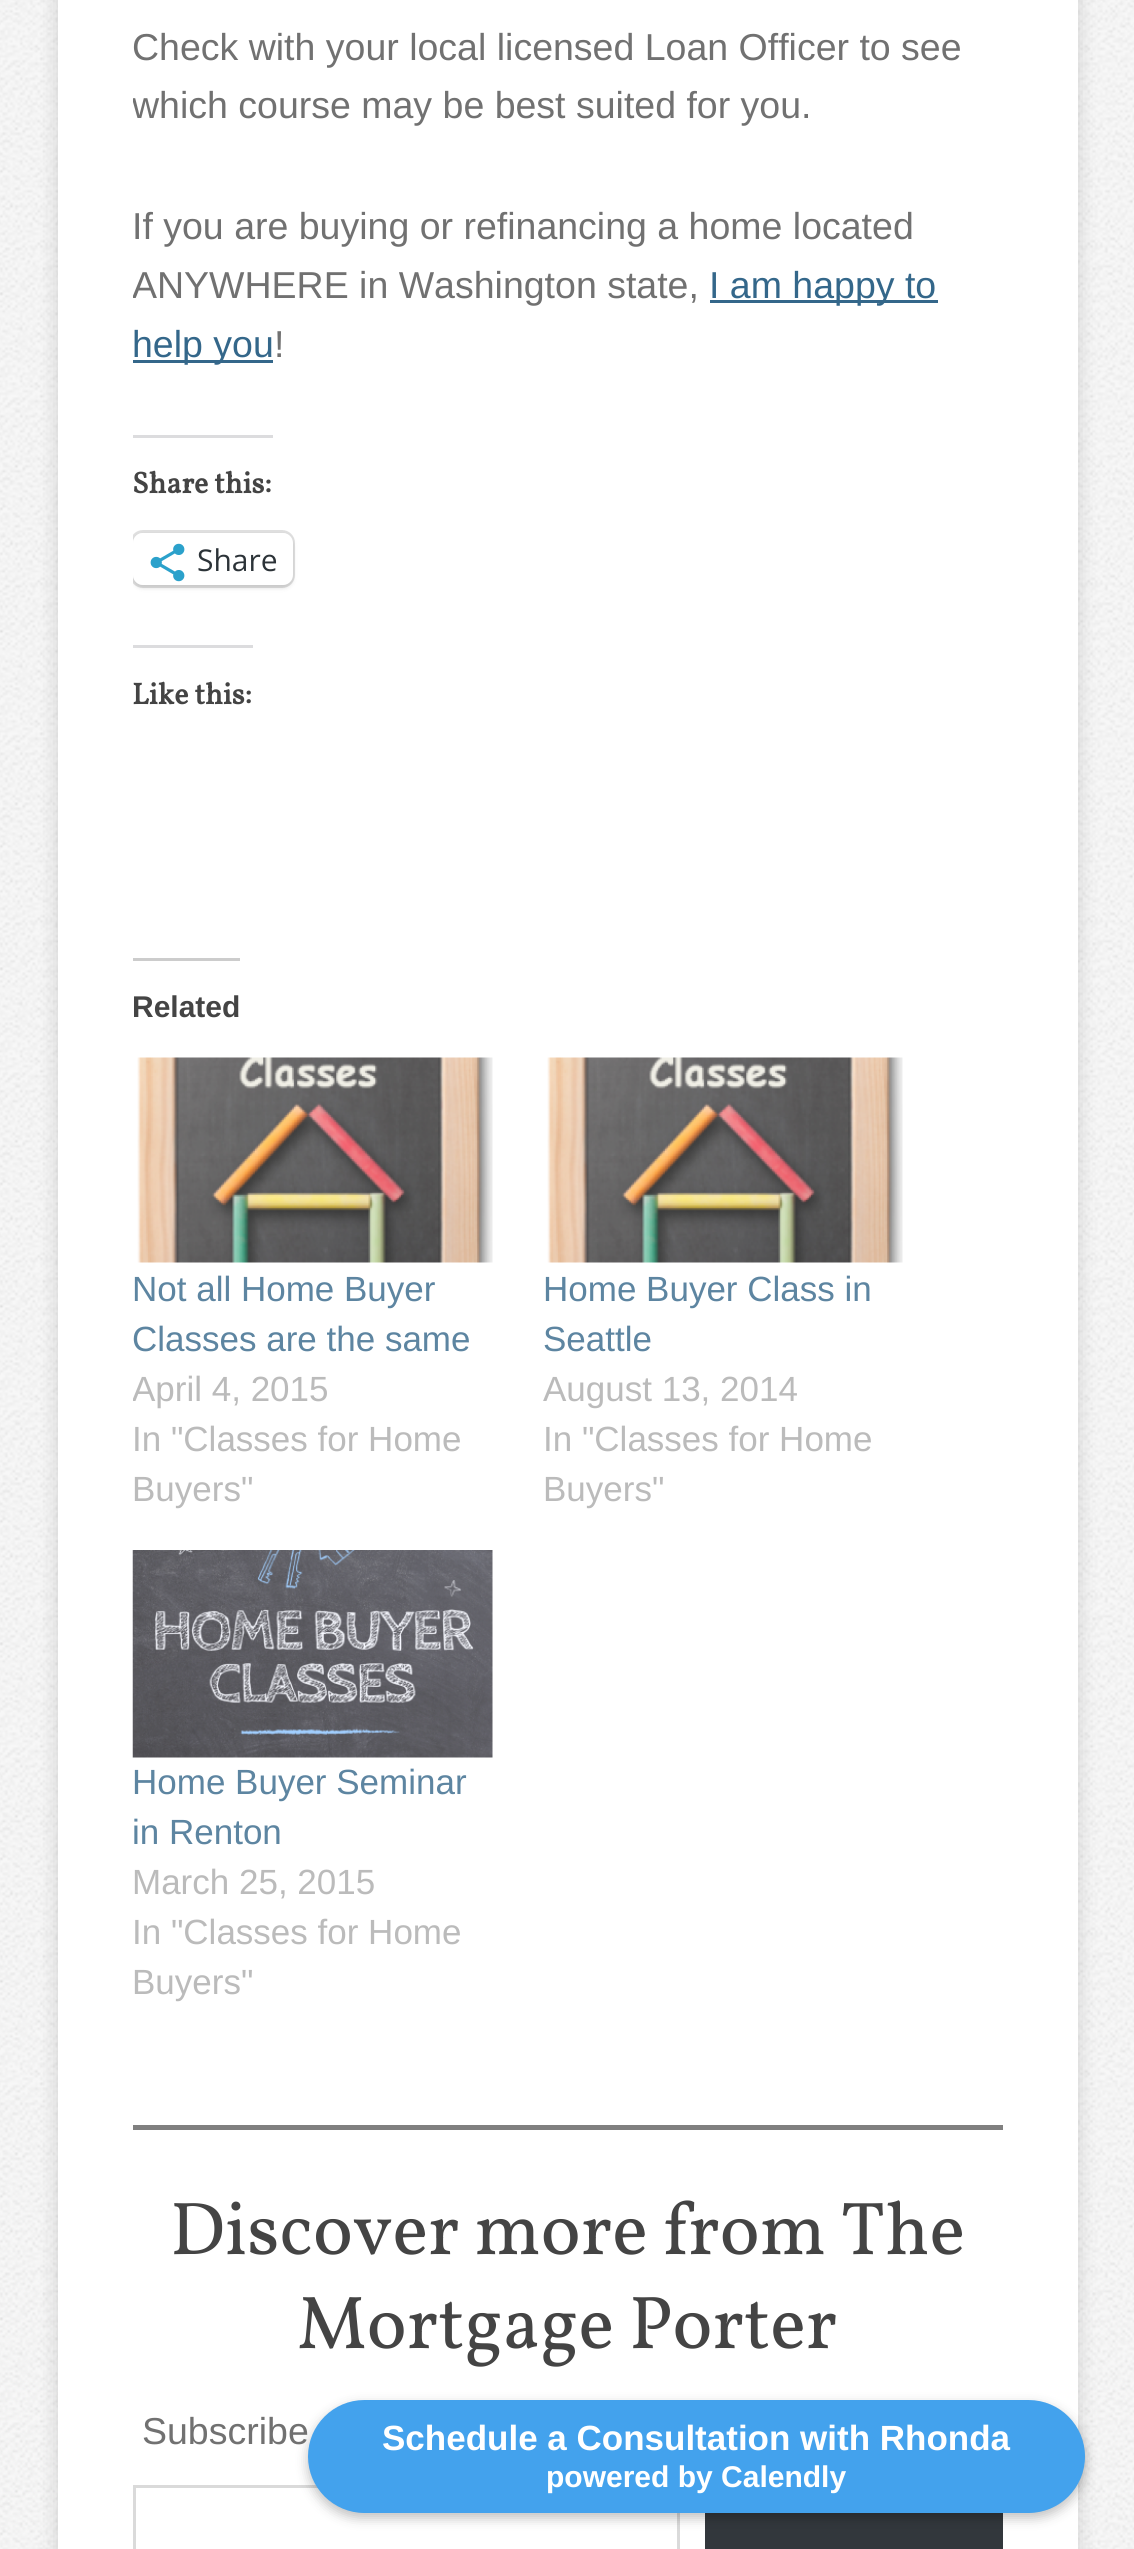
#include <cairo/cairo.h>
#include <math.h>
#include <stddef.h>


static void rounded_rect(cairo_t *cr, double x, double y, double w, double h, double r) {
  cairo_new_sub_path(cr);
  cairo_arc(cr, x + w - r, y + h - r, r, 0, M_PI / 2);
  cairo_arc(cr, x + r, y + h - r, r, M_PI / 2, M_PI);
  cairo_arc(cr, x + r, y + r, r, M_PI, 1.5 * M_PI);
  cairo_arc(cr, x + w - r, y + r, r, 1.5 * M_PI, 2 * M_PI);
  cairo_close_path(cr);
}

static void draw_shadow(cairo_t *cr, double x, double y, double w, double h, double r, double blur, double alpha) {
  cairo_push_group_with_content(cr, CAIRO_CONTENT_ALPHA);
  cairo_set_operator(cr, CAIRO_OPERATOR_SOURCE);
  for (int i = 15; i >= -15 && fmin(w, h) + blur * i / 3 > 0; i -= 2) {
    double e = blur * i / 6;
    cairo_set_source_rgba(cr, 0, 0, 0, alpha * erfc((i - 1) / 8.5) / 2);
    rounded_rect(cr, x - e, y - e, w + 2 * e, h + 2 * e, fmax(0, fmin(r + e + blur * .6, fmin(w, h) / 2 + e)));
    cairo_fill(cr);
  }
  cairo_pattern_t *soft = cairo_pop_group(cr);
  cairo_mask(cr, soft);
  cairo_pattern_destroy(soft);
}

static void draw_image(cairo_t *cr, const char *path, double x, double y, double w, double h) {
  cairo_surface_t *image = cairo_image_surface_create_from_png(path);
  cairo_save(cr);
  cairo_set_source_surface(cr, image, x, y);
  cairo_rectangle(cr, x, y, w, h);
  cairo_fill(cr);
  cairo_restore(cr);
  cairo_surface_destroy(image);
}

static void draw(cairo_t *cr) {
  cairo_set_source_rgb(cr, 1, 1, 1);
  cairo_paint(cr);
  draw_image(cr, "images/1.png", 0, 0, 1134, 2549);
  cairo_set_source_rgb(cr, 0, 0, 0);
  draw_shadow(cr, 58, -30, 1020, 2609, 0, 10, 0.15);
  cairo_set_source_rgb(cr, 1, 1, 1);
  cairo_rectangle(cr, 58, 0, 1020, 2549);
  cairo_fill(cr);
  cairo_set_source_rgb(cr, 52 / 255.0, 103 / 255.0, 138 / 255.0);
  cairo_rectangle(cr, 710, 300, 228, 3);
  cairo_fill(cr);
  cairo_rectangle(cr, 133, 360, 140, 3);
  cairo_fill(cr);
  cairo_set_source_rgb(cr, 220 / 255.0, 220 / 255.0, 222 / 255.0);
  cairo_rectangle(cr, 133, 435, 140, 3);
  cairo_fill(cr);
  cairo_save(cr);
  cairo_rectangle(cr, 133, 0, 870, 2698);
  cairo_clip(cr);
  rounded_rect(cr, 131.5, 531.5, 162, 55, 11.5);
  cairo_set_source_rgb(cr, 224 / 255.0, 224 / 255.0, 224 / 255.0);
  cairo_set_line_width(cr, 3);
  cairo_stroke(cr);
  cairo_restore(cr);
  cairo_save(cr);
  cairo_rectangle(cr, 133, 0, 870, 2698);
  cairo_clip(cr);
  cairo_set_source_rgb(cr, 0, 0, 0);
  draw_shadow(cr, 133, 535, 160, 53, 10, 2.5, 0.12);
  cairo_restore(cr);
  cairo_set_source_rgb(cr, 1, 1, 1);
  rounded_rect(cr, 133, 533, 160, 52, 10);
  cairo_fill(cr);
  draw_image(cr, "images/2.png", 150, 543, 35, 39);
  cairo_set_source_rgb(cr, 220 / 255.0, 220 / 255.0, 222 / 255.0);
  cairo_rectangle(cr, 133, 645, 120, 3);
  cairo_fill(cr);
  cairo_set_source_rgb(cr, 204 / 255.0, 204 / 255.0, 204 / 255.0);
  cairo_rectangle(cr, 133, 958, 107, 3);
  cairo_fill(cr);
  draw_image(cr, "images/3.png", 137, 1057, 356, 206);
  draw_image(cr, "images/4.png", 547, 1057, 356, 206);
  draw_image(cr, "images/5.png", 132, 1550, 361, 208);
  cairo_set_source_rgb(cr, 128 / 255.0, 128 / 255.0, 128 / 255.0);
  cairo_rectangle(cr, 133, 2125, 870, 5);
  cairo_fill(cr);
  cairo_rectangle(cr, 134.5, 2486.5, 544, 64);
  cairo_set_source_rgb(cr, 218 / 255.0, 218 / 255.0, 218 / 255.0);
  cairo_set_line_width(cr, 3);
  cairo_stroke(cr);
  cairo_set_source_rgb(cr, 50 / 255.0, 55 / 255.0, 60 / 255.0);
  cairo_rectangle(cr, 705, 2513, 298, 36);
  cairo_fill(cr);
  cairo_set_source_rgb(cr, 0, 0, 0);
  draw_shadow(cr, 308, 2405, 777, 113, 56.5, 6, 0.25);
  cairo_set_source_rgb(cr, 67 / 255.0, 162 / 255.0, 237 / 255.0);
  rounded_rect(cr, 308, 2400, 777, 113, 56.5);
  cairo_fill(cr);
  cairo_select_font_face(cr, "Liberation Sans", CAIRO_FONT_SLANT_NORMAL, CAIRO_FONT_WEIGHT_NORMAL);
  cairo_set_font_size(cr, 37.5);
  cairo_set_source_rgb(cr, 113 / 255.0, 113 / 255.0, 113 / 255.0);
  cairo_move_to(cr, 132, 60);
  cairo_show_text(cr, "Check with your local licensed Loan Officer to see");
  cairo_save(cr);
  cairo_rectangle(cr, 133, 0, 870, 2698);
  cairo_clip(cr);
  cairo_move_to(cr, 132, 118);
  cairo_show_text(cr, "which course may be best suited for you.");
  cairo_restore(cr);
  cairo_move_to(cr, 132, 239);
  cairo_show_text(cr, "If you are buying or refinancing a home located");
  cairo_save(cr);
  cairo_rectangle(cr, 133, 0, 870, 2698);
  cairo_clip(cr);
  cairo_move_to(cr, 132, 298);
  cairo_show_text(cr, "ANYWHERE in Washington state,");
  cairo_restore(cr);
  cairo_set_source_rgb(cr, 52 / 255.0, 103 / 255.0, 138 / 255.0);
  cairo_move_to(cr, 709, 298);
  cairo_show_text(cr, "I am happy to");
  cairo_move_to(cr, 132, 357);
  cairo_show_text(cr, "help you");
  cairo_set_source_rgb(cr, 113 / 255.0, 113 / 255.0, 113 / 255.0);
  cairo_move_to(cr, 274, 357);
  cairo_show_text(cr, "!");
  cairo_select_font_face(cr, "Vollkorn", CAIRO_FONT_SLANT_NORMAL, CAIRO_FONT_WEIGHT_BOLD);
  cairo_set_font_size(cr, 30);
  cairo_set_source_rgb(cr, 68 / 255.0, 68 / 255.0, 68 / 255.0);
  cairo_move_to(cr, 132, 493);
  cairo_show_text(cr, "Share this:");
  cairo_select_font_face(cr, "Open Sans", CAIRO_FONT_SLANT_NORMAL, CAIRO_FONT_WEIGHT_NORMAL);
  cairo_set_source_rgb(cr, 44 / 255.0, 51 / 255.0, 56 / 255.0);
  cairo_move_to(cr, 197, 571);
  cairo_show_text(cr, "Share");
  cairo_select_font_face(cr, "Vollkorn", CAIRO_FONT_SLANT_NORMAL, CAIRO_FONT_WEIGHT_BOLD);
  cairo_set_source_rgb(cr, 68 / 255.0, 68 / 255.0, 68 / 255.0);
  cairo_move_to(cr, 132, 704);
  cairo_show_text(cr, "Like this:");
  cairo_select_font_face(cr, "Liberation Sans", CAIRO_FONT_SLANT_NORMAL, CAIRO_FONT_WEIGHT_BOLD);
  cairo_move_to(cr, 132, 1017);
  cairo_show_text(cr, "Related");
  cairo_select_font_face(cr, "Liberation Sans", CAIRO_FONT_SLANT_NORMAL, CAIRO_FONT_WEIGHT_NORMAL);
  cairo_set_font_size(cr, 35);
  cairo_set_source_rgb(cr, 93 / 255.0, 133 / 255.0, 161 / 255.0);
  cairo_move_to(cr, 132, 1301);
  cairo_show_text(cr, "Not all Home Buyer");
  cairo_move_to(cr, 132, 1351);
  cairo_show_text(cr, "Classes are the same");
  cairo_save(cr);
  cairo_rectangle(cr, 133, 0, 870, 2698);
  cairo_clip(cr);
  cairo_set_source_rgb(cr, 187 / 255.0, 187 / 255.0, 187 / 255.0);
  cairo_move_to(cr, 132, 1401);
  cairo_show_text(cr, "April 4, 2015");
  cairo_restore(cr);
  cairo_set_source_rgb(cr, 187 / 255.0, 187 / 255.0, 187 / 255.0);
  cairo_move_to(cr, 132, 1451);
  cairo_show_text(cr, "In \"Classes for Home");
  cairo_move_to(cr, 132, 1501);
  cairo_show_text(cr, "Buyers\"");
  cairo_set_source_rgb(cr, 93 / 255.0, 133 / 255.0, 161 / 255.0);
  cairo_move_to(cr, 543, 1301);
  cairo_show_text(cr, "Home Buyer Class in");
  cairo_move_to(cr, 543, 1351);
  cairo_show_text(cr, "Seattle");
  cairo_set_source_rgb(cr, 187 / 255.0, 187 / 255.0, 187 / 255.0);
  cairo_move_to(cr, 543, 1401);
  cairo_show_text(cr, "August 13, 2014");
  cairo_move_to(cr, 543, 1451);
  cairo_show_text(cr, "In \"Classes for Home");
  cairo_move_to(cr, 543, 1501);
  cairo_show_text(cr, "Buyers\"");
  cairo_set_source_rgb(cr, 93 / 255.0, 133 / 255.0, 161 / 255.0);
  cairo_move_to(cr, 132, 1794);
  cairo_show_text(cr, "Home Buyer Seminar");
  cairo_move_to(cr, 132, 1844);
  cairo_show_text(cr, "in Renton");
  cairo_set_source_rgb(cr, 187 / 255.0, 187 / 255.0, 187 / 255.0);
  cairo_move_to(cr, 132, 1894);
  cairo_show_text(cr, "March 25, 2015");
  cairo_move_to(cr, 132, 1944);
  cairo_show_text(cr, "In \"Classes for Home");
  cairo_move_to(cr, 132, 1994);
  cairo_show_text(cr, "Buyers\"");
  cairo_select_font_face(cr, "Vollkorn", CAIRO_FONT_SLANT_NORMAL, CAIRO_FONT_WEIGHT_NORMAL);
  cairo_set_font_size(cr, 75);
  cairo_set_source_rgb(cr, 68 / 255.0, 68 / 255.0, 68 / 255.0);
  cairo_move_to(cr, 170, 2254);
  cairo_show_text(cr, "Discover more from The");
  cairo_move_to(cr, 297, 2348);
  cairo_show_text(cr, "Mortgage Porter");
  cairo_select_font_face(cr, "Liberation Sans", CAIRO_FONT_SLANT_NORMAL, CAIRO_FONT_WEIGHT_NORMAL);
  cairo_set_font_size(cr, 37.5);
  cairo_set_source_rgb(cr, 113 / 255.0, 113 / 255.0, 113 / 255.0);
  cairo_move_to(cr, 142, 2444);
  cairo_show_text(cr, "Subscribe");
  cairo_select_font_face(cr, "Liberation Sans", CAIRO_FONT_SLANT_NORMAL, CAIRO_FONT_WEIGHT_BOLD);
  cairo_set_font_size(cr, 35);
  cairo_set_source_rgb(cr, 1, 1, 1);
  cairo_move_to(cr, 382, 2450);
  cairo_show_text(cr, "Schedule a Consultation with Rhonda");
  cairo_set_font_size(cr, 30);
  cairo_move_to(cr, 546, 2487);
  cairo_show_text(cr, "powered by Calendly");
}

int main(void) {
  cairo_surface_t *surface = cairo_image_surface_create(CAIRO_FORMAT_RGB24, 1134, 2549);
  cairo_t *cr = cairo_create(surface);
  cairo_font_options_t *options = cairo_font_options_create();
  cairo_font_options_set_hint_metrics(options, CAIRO_HINT_METRICS_OFF);
  cairo_font_options_set_hint_style(options, CAIRO_HINT_STYLE_NONE);
  cairo_set_font_options(cr, options);
  cairo_set_miter_limit(cr, 4);
  draw(cr);
  cairo_surface_write_to_png(surface, "out.png");
  cairo_font_options_destroy(options);
  cairo_destroy(cr);
  cairo_surface_destroy(surface);
  return 0;
}
